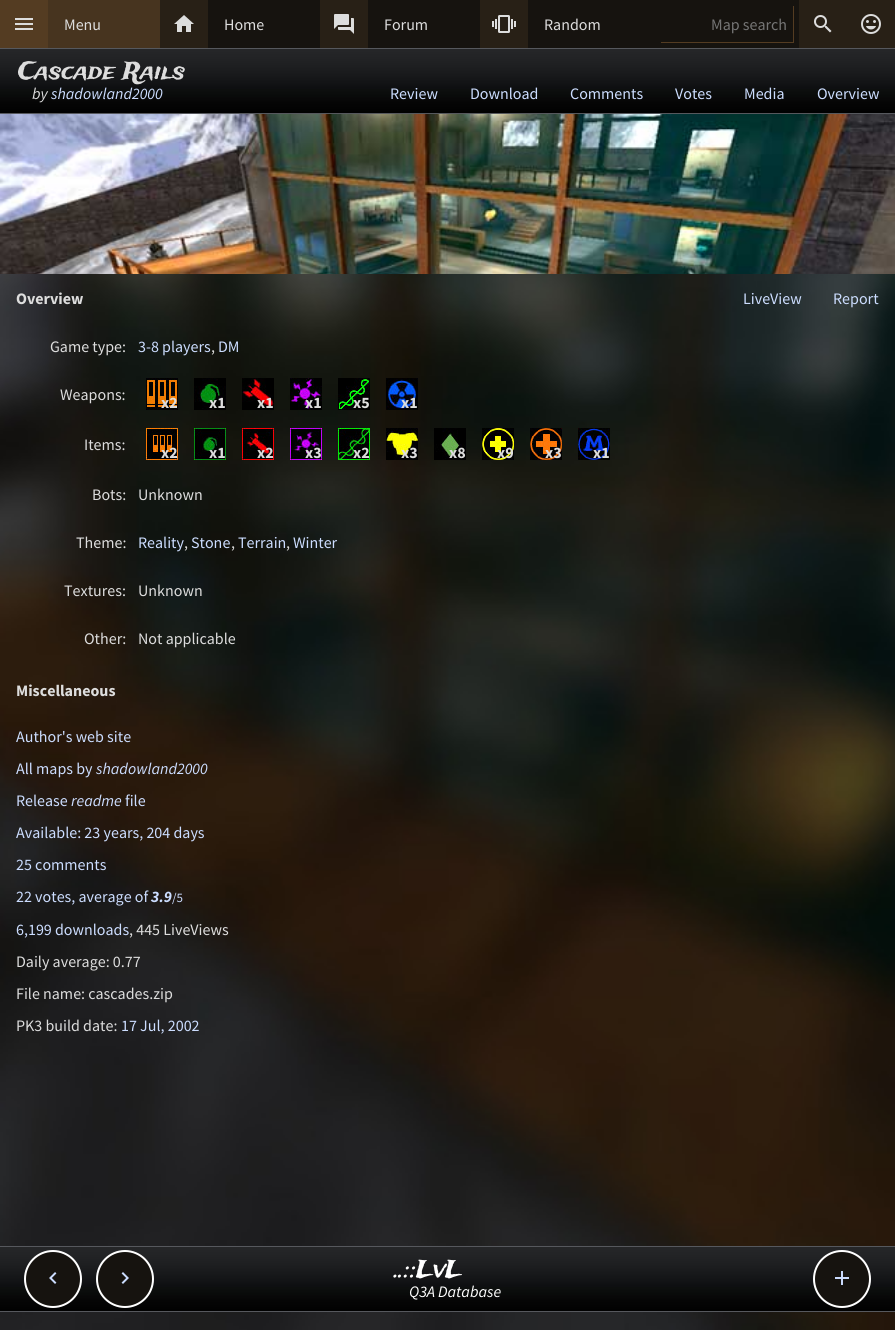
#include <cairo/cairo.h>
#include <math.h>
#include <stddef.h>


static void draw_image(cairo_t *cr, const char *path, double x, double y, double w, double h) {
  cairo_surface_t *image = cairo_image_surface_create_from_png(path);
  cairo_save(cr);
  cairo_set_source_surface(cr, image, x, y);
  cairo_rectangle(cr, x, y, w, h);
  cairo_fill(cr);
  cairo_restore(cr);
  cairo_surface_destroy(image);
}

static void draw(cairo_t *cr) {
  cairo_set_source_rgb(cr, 1, 1, 1);
  cairo_paint(cr);
  cairo_set_source_rgb(cr, 22 / 255.0, 19 / 255.0, 15 / 255.0);
  cairo_rectangle(cr, 208, 0, 591, 48);
  cairo_fill(cr);
  cairo_set_source_rgb(cr, 84 / 255.0, 60 / 255.0, 34 / 255.0);
  cairo_rectangle(cr, 0, 0, 48, 48);
  cairo_fill(cr);
  draw_image(cr, "images/1.png", 15, 18, 18, 12);
  cairo_set_source_rgb(cr, 71 / 255.0, 52 / 255.0, 31 / 255.0);
  cairo_rectangle(cr, 48, 0, 112, 48);
  cairo_fill(cr);
  cairo_set_source_rgb(cr, 40 / 255.0, 32 / 255.0, 22 / 255.0);
  cairo_rectangle(cr, 160, 0, 48, 48);
  cairo_fill(cr);
  draw_image(cr, "images/2.png", 174, 15, 20, 17);
  cairo_rectangle(cr, 320, 0, 48, 48);
  cairo_fill(cr);
  draw_image(cr, "images/3.png", 334, 14, 20, 20);
  cairo_rectangle(cr, 480, 0, 48, 48);
  cairo_fill(cr);
  draw_image(cr, "images/4.png", 492, 15, 24, 18);
  cairo_set_source_rgb(cr, 84 / 255.0, 60 / 255.0, 34 / 255.0);
  cairo_rectangle(cr, 793, 6, 1, 37);
  cairo_fill(cr);
  cairo_rectangle(cr, 661, 42, 133, 1);
  cairo_fill(cr);
  cairo_set_source_rgb(cr, 40 / 255.0, 32 / 255.0, 22 / 255.0);
  cairo_rectangle(cr, 799, 0, 96, 48);
  cairo_fill(cr);
  draw_image(cr, "images/5.png", 814, 15, 18, 18);
  draw_image(cr, "images/6.png", 861, 14, 20, 20);
  draw_image(cr, "images/7.png", 0, 49, 895, 64);
  cairo_set_source_rgb(cr, 86 / 255.0, 88 / 255.0, 93 / 255.0);
  cairo_rectangle(cr, 0, 48, 895, 1);
  cairo_fill(cr);
  cairo_rectangle(cr, 0, 113, 895, 1);
  cairo_fill(cr);
  draw_image(cr, "images/8.png", 0, 274, 895, 1056);
  draw_image(cr, "images/9.png", 0, 114, 895, 160);
  draw_image(cr, "images/10.png", 146, 378, 32, 32);
  draw_image(cr, "images/11.png", 194, 378, 32, 32);
  draw_image(cr, "images/12.png", 242, 378, 32, 32);
  draw_image(cr, "images/13.png", 290, 378, 32, 32);
  draw_image(cr, "images/14.png", 338, 378, 32, 32);
  draw_image(cr, "images/15.png", 386, 378, 32, 32);
  draw_image(cr, "images/16.png", 146, 428, 32, 32);
  draw_image(cr, "images/17.png", 194, 428, 32, 32);
  draw_image(cr, "images/18.png", 242, 428, 32, 32);
  draw_image(cr, "images/19.png", 290, 428, 32, 32);
  draw_image(cr, "images/20.png", 338, 428, 32, 32);
  draw_image(cr, "images/21.png", 386, 428, 32, 32);
  draw_image(cr, "images/22.png", 434, 428, 32, 32);
  draw_image(cr, "images/23.png", 482, 428, 32, 32);
  draw_image(cr, "images/24.png", 530, 428, 32, 32);
  draw_image(cr, "images/25.png", 578, 428, 32, 32);
  draw_image(cr, "images/7.png", 0, 1247, 895, 64);
  cairo_set_source_rgb(cr, 22 / 255.0, 19 / 255.0, 15 / 255.0);
  cairo_arc(cr, 53, 1279, 28, 0, 2 * M_PI);
  cairo_fill_preserve(cr);
  cairo_set_source_rgb(cr, 1, 1, 1);
  cairo_stroke(cr);
  draw_image(cr, "images/26.png", 49, 1272, 8, 12);
  cairo_set_source_rgb(cr, 22 / 255.0, 19 / 255.0, 15 / 255.0);
  cairo_arc(cr, 125, 1279, 28, 0, 2 * M_PI);
  cairo_fill_preserve(cr);
  cairo_set_source_rgb(cr, 1, 1, 1);
  cairo_stroke(cr);
  draw_image(cr, "images/27.png", 121, 1272, 8, 12);
  cairo_set_source_rgb(cr, 22 / 255.0, 19 / 255.0, 15 / 255.0);
  cairo_arc(cr, 842, 1279, 28, 0, 2 * M_PI);
  cairo_fill_preserve(cr);
  cairo_set_source_rgb(cr, 1, 1, 1);
  cairo_stroke(cr);
  draw_image(cr, "images/28.png", 835, 1271, 14, 14);
  cairo_set_source_rgb(cr, 86 / 255.0, 88 / 255.0, 93 / 255.0);
  cairo_rectangle(cr, 0, 1246, 895, 1);
  cairo_fill(cr);
  cairo_rectangle(cr, 0, 1311, 895, 1);
  cairo_fill(cr);
  cairo_select_font_face(cr, "Source Sans Pro", CAIRO_FONT_SLANT_NORMAL, CAIRO_FONT_WEIGHT_NORMAL);
  cairo_set_font_size(cr, 16);
  cairo_set_source_rgb(cr, 221 / 255.0, 221 / 255.0, 221 / 255.0);
  cairo_move_to(cr, 64, 30);
  cairo_show_text(cr, "Menu");
  cairo_move_to(cr, 224, 30);
  cairo_show_text(cr, "Home");
  cairo_move_to(cr, 384, 30);
  cairo_show_text(cr, "Forum");
  cairo_move_to(cr, 544, 30);
  cairo_show_text(cr, "Random");
  cairo_set_source_rgb(cr, 117 / 255.0, 117 / 255.0, 117 / 255.0);
  cairo_move_to(cr, 711, 30);
  cairo_show_text(cr, "Map search");
  cairo_select_font_face(cr, "Trade Winds", CAIRO_FONT_SLANT_NORMAL, CAIRO_FONT_WEIGHT_NORMAL);
  cairo_set_font_size(cr, 24);
  cairo_set_source_rgb(cr, 221 / 255.0, 221 / 255.0, 221 / 255.0);
  cairo_move_to(cr, 18, 79);
  cairo_show_text(cr, "Cascade Rails");
  cairo_select_font_face(cr, "Source Sans Pro", CAIRO_FONT_SLANT_ITALIC, CAIRO_FONT_WEIGHT_NORMAL);
  cairo_set_font_size(cr, 16);
  cairo_move_to(cr, 32, 99);
  cairo_show_text(cr, "by");
  cairo_set_source_rgb(cr, 204 / 255.0, 221 / 255.0, 1);
  cairo_move_to(cr, 51, 99);
  cairo_show_text(cr, "shadowland2000");
  cairo_select_font_face(cr, "Source Sans Pro", CAIRO_FONT_SLANT_NORMAL, CAIRO_FONT_WEIGHT_NORMAL);
  cairo_move_to(cr, 390, 99);
  cairo_show_text(cr, "Review");
  cairo_move_to(cr, 470, 99);
  cairo_show_text(cr, "Download");
  cairo_move_to(cr, 570, 99);
  cairo_show_text(cr, "Comments");
  cairo_move_to(cr, 675, 99);
  cairo_show_text(cr, "Votes");
  cairo_move_to(cr, 744, 99);
  cairo_show_text(cr, "Media");
  cairo_move_to(cr, 817, 99);
  cairo_show_text(cr, "Overview");
  cairo_select_font_face(cr, "Source Sans Pro", CAIRO_FONT_SLANT_NORMAL, CAIRO_FONT_WEIGHT_BOLD);
  cairo_set_source_rgb(cr, 221 / 255.0, 221 / 255.0, 221 / 255.0);
  cairo_move_to(cr, 16, 304);
  cairo_show_text(cr, "Overview");
  cairo_select_font_face(cr, "Source Sans Pro", CAIRO_FONT_SLANT_NORMAL, CAIRO_FONT_WEIGHT_NORMAL);
  cairo_set_source_rgb(cr, 204 / 255.0, 221 / 255.0, 1);
  cairo_move_to(cr, 743, 304);
  cairo_show_text(cr, "LiveView");
  cairo_move_to(cr, 833, 304);
  cairo_show_text(cr, "Report");
  cairo_set_source_rgb(cr, 221 / 255.0, 221 / 255.0, 221 / 255.0);
  cairo_move_to(cr, 50, 352);
  cairo_show_text(cr, "Game type:");
  cairo_set_source_rgb(cr, 204 / 255.0, 221 / 255.0, 1);
  cairo_move_to(cr, 138, 352);
  cairo_show_text(cr, "3-8 players");
  cairo_move_to(cr, 218, 352);
  cairo_show_text(cr, "DM");
  cairo_set_source_rgb(cr, 221 / 255.0, 221 / 255.0, 221 / 255.0);
  cairo_move_to(cr, 211, 352);
  cairo_show_text(cr, ",");
  cairo_move_to(cr, 60, 400);
  cairo_show_text(cr, "Weapons:");
  cairo_select_font_face(cr, "Source Sans Pro", CAIRO_FONT_SLANT_NORMAL, CAIRO_FONT_WEIGHT_BOLD);
  cairo_move_to(cr, 161, 408);
  cairo_show_text(cr, "x2");
  cairo_move_to(cr, 209, 408);
  cairo_show_text(cr, "x1");
  cairo_move_to(cr, 257, 408);
  cairo_show_text(cr, "x1");
  cairo_move_to(cr, 305, 408);
  cairo_show_text(cr, "x1");
  cairo_move_to(cr, 353, 408);
  cairo_show_text(cr, "x5");
  cairo_move_to(cr, 401, 408);
  cairo_show_text(cr, "x1");
  cairo_select_font_face(cr, "Source Sans Pro", CAIRO_FONT_SLANT_NORMAL, CAIRO_FONT_WEIGHT_NORMAL);
  cairo_move_to(cr, 84, 450);
  cairo_show_text(cr, "Items:");
  cairo_select_font_face(cr, "Source Sans Pro", CAIRO_FONT_SLANT_NORMAL, CAIRO_FONT_WEIGHT_BOLD);
  cairo_move_to(cr, 161, 458);
  cairo_show_text(cr, "x2");
  cairo_move_to(cr, 209, 458);
  cairo_show_text(cr, "x1");
  cairo_move_to(cr, 257, 458);
  cairo_show_text(cr, "x2");
  cairo_move_to(cr, 305, 458);
  cairo_show_text(cr, "x3");
  cairo_move_to(cr, 353, 458);
  cairo_show_text(cr, "x2");
  cairo_move_to(cr, 401, 458);
  cairo_show_text(cr, "x3");
  cairo_move_to(cr, 449, 458);
  cairo_show_text(cr, "x8");
  cairo_move_to(cr, 497, 458);
  cairo_show_text(cr, "x9");
  cairo_move_to(cr, 545, 458);
  cairo_show_text(cr, "x3");
  cairo_move_to(cr, 593, 458);
  cairo_show_text(cr, "x1");
  cairo_select_font_face(cr, "Source Sans Pro", CAIRO_FONT_SLANT_NORMAL, CAIRO_FONT_WEIGHT_NORMAL);
  cairo_move_to(cr, 92, 500);
  cairo_show_text(cr, "Bots:");
  cairo_move_to(cr, 138, 500);
  cairo_show_text(cr, "Unknown");
  cairo_move_to(cr, 76, 548);
  cairo_show_text(cr, "Theme:");
  cairo_set_source_rgb(cr, 204 / 255.0, 221 / 255.0, 1);
  cairo_move_to(cr, 138, 548);
  cairo_show_text(cr, "Reality");
  cairo_set_source_rgb(cr, 221 / 255.0, 221 / 255.0, 221 / 255.0);
  cairo_move_to(cr, 184, 548);
  cairo_show_text(cr, ",");
  cairo_set_source_rgb(cr, 204 / 255.0, 221 / 255.0, 1);
  cairo_move_to(cr, 191, 548);
  cairo_show_text(cr, "Stone");
  cairo_set_source_rgb(cr, 221 / 255.0, 221 / 255.0, 221 / 255.0);
  cairo_move_to(cr, 231, 548);
  cairo_show_text(cr, ",");
  cairo_set_source_rgb(cr, 204 / 255.0, 221 / 255.0, 1);
  cairo_move_to(cr, 238, 548);
  cairo_show_text(cr, "Terrain");
  cairo_set_source_rgb(cr, 221 / 255.0, 221 / 255.0, 221 / 255.0);
  cairo_move_to(cr, 286, 548);
  cairo_show_text(cr, ",");
  cairo_set_source_rgb(cr, 204 / 255.0, 221 / 255.0, 1);
  cairo_move_to(cr, 293, 548);
  cairo_show_text(cr, "Winter");
  cairo_set_source_rgb(cr, 221 / 255.0, 221 / 255.0, 221 / 255.0);
  cairo_move_to(cr, 64, 596);
  cairo_show_text(cr, "Textures:");
  cairo_move_to(cr, 138, 596);
  cairo_show_text(cr, "Unknown");
  cairo_move_to(cr, 84, 644);
  cairo_show_text(cr, "Other:");
  cairo_move_to(cr, 138, 644);
  cairo_show_text(cr, "Not applicable");
  cairo_select_font_face(cr, "Source Sans Pro", CAIRO_FONT_SLANT_NORMAL, CAIRO_FONT_WEIGHT_BOLD);
  cairo_move_to(cr, 16, 696);
  cairo_show_text(cr, "Miscellaneous");
  cairo_select_font_face(cr, "Source Sans Pro", CAIRO_FONT_SLANT_NORMAL, CAIRO_FONT_WEIGHT_NORMAL);
  cairo_set_source_rgb(cr, 204 / 255.0, 221 / 255.0, 1);
  cairo_move_to(cr, 16, 742);
  cairo_show_text(cr, "Author's web site");
  cairo_move_to(cr, 16, 774);
  cairo_show_text(cr, "All maps by");
  cairo_select_font_face(cr, "Source Sans Pro", CAIRO_FONT_SLANT_ITALIC, CAIRO_FONT_WEIGHT_NORMAL);
  cairo_move_to(cr, 96, 774);
  cairo_show_text(cr, "shadowland2000");
  cairo_select_font_face(cr, "Source Sans Pro", CAIRO_FONT_SLANT_NORMAL, CAIRO_FONT_WEIGHT_NORMAL);
  cairo_move_to(cr, 16, 806);
  cairo_show_text(cr, "Release");
  cairo_select_font_face(cr, "Source Sans Pro", CAIRO_FONT_SLANT_ITALIC, CAIRO_FONT_WEIGHT_NORMAL);
  cairo_move_to(cr, 71, 806);
  cairo_show_text(cr, "readme");
  cairo_select_font_face(cr, "Source Sans Pro", CAIRO_FONT_SLANT_NORMAL, CAIRO_FONT_WEIGHT_NORMAL);
  cairo_move_to(cr, 125, 806);
  cairo_show_text(cr, "file");
  cairo_move_to(cr, 16, 838);
  cairo_show_text(cr, "Available: 23 years, 204 days");
  cairo_move_to(cr, 16, 870);
  cairo_show_text(cr, "25 comments");
  cairo_move_to(cr, 16, 902);
  cairo_show_text(cr, "22 votes, average of");
  cairo_select_font_face(cr, "Source Sans Pro", CAIRO_FONT_SLANT_ITALIC, CAIRO_FONT_WEIGHT_BOLD);
  cairo_move_to(cr, 151, 902);
  cairo_show_text(cr, "3.9");
  cairo_select_font_face(cr, "Source Sans Pro", CAIRO_FONT_SLANT_NORMAL, CAIRO_FONT_WEIGHT_NORMAL);
  cairo_set_font_size(cr, 13);
  cairo_move_to(cr, 172, 902);
  cairo_show_text(cr, "/5");
  cairo_set_font_size(cr, 16);
  cairo_move_to(cr, 16, 935);
  cairo_show_text(cr, "6,199 downloads");
  cairo_set_source_rgb(cr, 221 / 255.0, 221 / 255.0, 221 / 255.0);
  cairo_move_to(cr, 129, 935);
  cairo_show_text(cr, ", 445 LiveViews");
  cairo_move_to(cr, 16, 967);
  cairo_show_text(cr, "Daily average: 0.77");
  cairo_move_to(cr, 16, 999);
  cairo_show_text(cr, "File name: cascades.zip");
  cairo_move_to(cr, 16, 1031);
  cairo_show_text(cr, "PK3 build date:");
  cairo_set_source_rgb(cr, 204 / 255.0, 221 / 255.0, 1);
  cairo_move_to(cr, 121, 1031);
  cairo_show_text(cr, "17 Jul, 2002");
  cairo_select_font_face(cr, "Trade Winds", CAIRO_FONT_SLANT_NORMAL, CAIRO_FONT_WEIGHT_NORMAL);
  cairo_set_font_size(cr, 24);
  cairo_set_source_rgb(cr, 1, 1, 1);
  cairo_move_to(cr, 395, 1277);
  cairo_show_text(cr, "..::LvL");
  cairo_select_font_face(cr, "Source Sans Pro", CAIRO_FONT_SLANT_ITALIC, CAIRO_FONT_WEIGHT_NORMAL);
  cairo_set_font_size(cr, 16);
  cairo_move_to(cr, 409, 1297);
  cairo_show_text(cr, "Q3A Database");
}

int main(void) {
  cairo_surface_t *surface = cairo_image_surface_create(CAIRO_FORMAT_RGB24, 895, 1330);
  cairo_t *cr = cairo_create(surface);
  cairo_font_options_t *options = cairo_font_options_create();
  cairo_font_options_set_hint_metrics(options, CAIRO_HINT_METRICS_OFF);
  cairo_font_options_set_hint_style(options, CAIRO_HINT_STYLE_NONE);
  cairo_set_font_options(cr, options);
  cairo_set_miter_limit(cr, 4);
  draw(cr);
  cairo_surface_write_to_png(surface, "out.png");
  cairo_font_options_destroy(options);
  cairo_destroy(cr);
  cairo_surface_destroy(surface);
  return 0;
}
